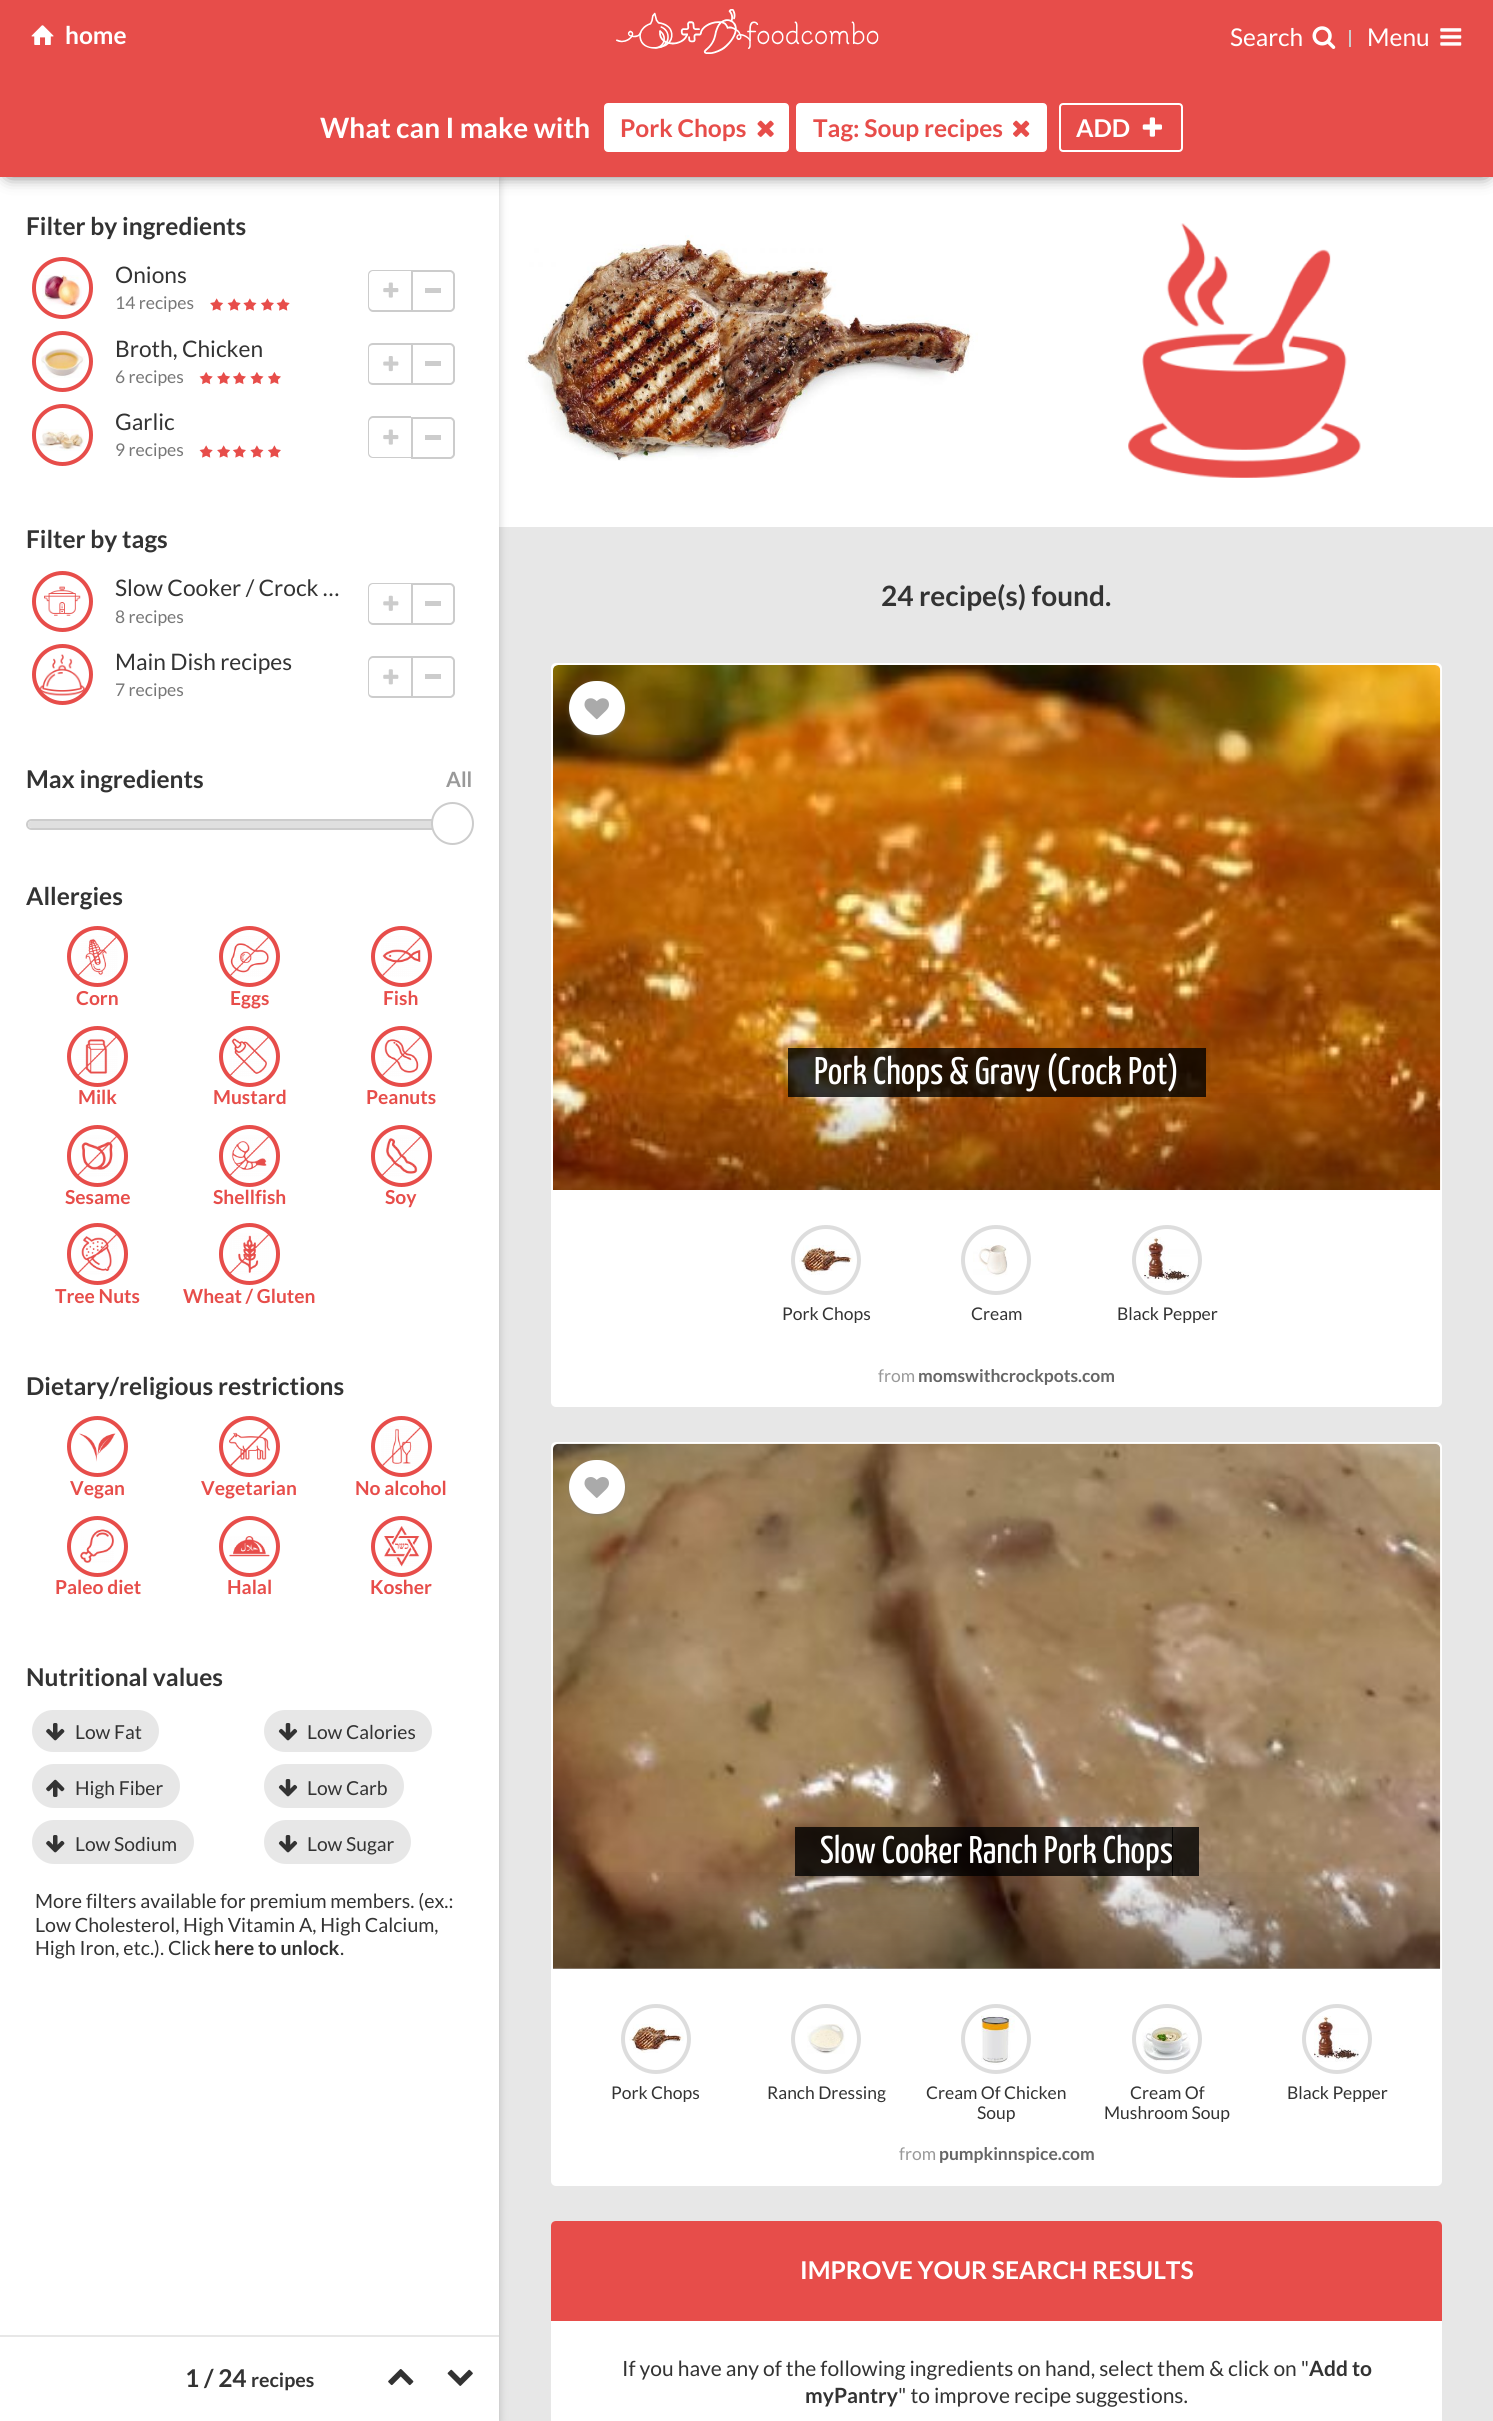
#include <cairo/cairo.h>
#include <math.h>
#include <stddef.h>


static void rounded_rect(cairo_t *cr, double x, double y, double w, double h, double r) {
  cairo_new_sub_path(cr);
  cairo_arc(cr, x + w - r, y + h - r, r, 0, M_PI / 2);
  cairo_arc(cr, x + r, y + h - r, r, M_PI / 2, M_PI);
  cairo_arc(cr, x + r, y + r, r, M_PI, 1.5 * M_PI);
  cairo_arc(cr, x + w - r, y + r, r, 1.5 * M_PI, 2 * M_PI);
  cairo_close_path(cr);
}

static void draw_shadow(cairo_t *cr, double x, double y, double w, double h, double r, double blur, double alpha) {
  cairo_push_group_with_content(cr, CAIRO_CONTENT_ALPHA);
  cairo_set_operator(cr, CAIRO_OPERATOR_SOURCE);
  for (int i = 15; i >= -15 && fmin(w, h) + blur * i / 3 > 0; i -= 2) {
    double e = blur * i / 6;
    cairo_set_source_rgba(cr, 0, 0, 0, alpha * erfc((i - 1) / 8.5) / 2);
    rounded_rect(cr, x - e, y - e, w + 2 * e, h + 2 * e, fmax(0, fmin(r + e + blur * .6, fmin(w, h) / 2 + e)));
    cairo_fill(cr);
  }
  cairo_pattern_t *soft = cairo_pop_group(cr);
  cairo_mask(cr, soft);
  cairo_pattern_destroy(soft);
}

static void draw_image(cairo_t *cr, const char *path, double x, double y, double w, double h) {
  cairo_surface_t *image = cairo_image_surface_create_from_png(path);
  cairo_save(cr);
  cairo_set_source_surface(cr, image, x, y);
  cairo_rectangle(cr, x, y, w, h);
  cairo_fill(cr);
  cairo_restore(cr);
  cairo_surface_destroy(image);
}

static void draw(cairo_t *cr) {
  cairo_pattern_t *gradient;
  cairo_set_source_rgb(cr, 231 / 255.0, 231 / 255.0, 231 / 255.0);
  cairo_paint(cr);
  cairo_set_source_rgb(cr, 1, 1, 1);
  cairo_rectangle(cr, 499, 177, 994, 350);
  cairo_fill(cr);
  cairo_set_source_rgb(cr, 0, 0, 0);
  draw_shadow(cr, 0, 177, 499, 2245, 0, 4.5, 0.2);
  cairo_set_source_rgb(cr, 1, 1, 1);
  cairo_rectangle(cr, 0, 177, 499, 2244);
  cairo_fill(cr);
  cairo_set_source_rgb(cr, 51 / 255.0, 51 / 255.0, 51 / 255.0);
  draw_shadow(cr, 9, 93, 1477, 80, 0, 9, 1);
  cairo_set_source_rgb(cr, 231 / 255.0, 77 / 255.0, 74 / 255.0);
  cairo_rectangle(cr, 0, 0, 1493, 177);
  cairo_fill(cr);
  draw_image(cr, "images/1.png", 31, 25, 23, 20);
  draw_image(cr, "images/2.png", 616, 9, 263, 45);
  draw_image(cr, "images/3.png", 1312, 26, 24, 23);
  cairo_set_source_rgb(cr, 204 / 255.0, 204 / 255.0, 204 / 255.0);
  cairo_rectangle(cr, 1349, 30, 2, 17);
  cairo_fill(cr);
  draw_image(cr, "images/4.png", 1440, 28, 22, 18);
  cairo_set_source_rgb(cr, 1, 1, 1);
  rounded_rect(cr, 605, 104, 183, 47, 3);
  cairo_fill_preserve(cr);
  cairo_stroke(cr);
  draw_image(cr, "images/5.png", 757, 120, 17, 17);
  rounded_rect(cr, 797, 104, 249, 47, 3);
  cairo_fill_preserve(cr);
  cairo_stroke(cr);
  draw_image(cr, "images/6.png", 1013, 120, 17, 17);
  rounded_rect(cr, 1060, 104, 122, 47, 3);
  cairo_stroke(cr);
  draw_image(cr, "images/7.png", 1142, 117, 20, 20);
  draw_image(cr, "images/8.png", 42, 275, 40, 35);
  rounded_rect(cr, 34, 259, 57, 58, 28.5);
  cairo_set_source_rgb(cr, 231 / 255.0, 77 / 255.0, 74 / 255.0);
  cairo_set_line_width(cr, 4);
  cairo_stroke(cr);
  cairo_set_source_rgb(cr, 204 / 255.0, 204 / 255.0, 204 / 255.0);
  cairo_set_fill_rule(cr, CAIRO_FILL_RULE_EVEN_ODD);
  cairo_new_path(cr);
  cairo_move_to(cr, 373, 270);
  cairo_line_to(cr, 411, 270);
  cairo_line_to(cr, 411, 312);
  cairo_line_to(cr, 373, 312);
  cairo_curve_to(cr, 370, 312, 368, 309, 368, 306);
  cairo_line_to(cr, 368, 275);
  cairo_curve_to(cr, 368, 272, 370, 270, 373, 270);
  cairo_close_path(cr);
  cairo_move_to(cr, 373, 271);
  cairo_line_to(cr, 411, 271);
  cairo_line_to(cr, 411, 310);
  cairo_line_to(cr, 373, 310);
  cairo_curve_to(cr, 371, 310, 369, 308, 369, 306);
  cairo_line_to(cr, 369, 275);
  cairo_curve_to(cr, 369, 273, 371, 271, 373, 271);
  cairo_close_path(cr);
  cairo_fill(cr);
  draw_image(cr, "images/9.png", 383, 282, 16, 16);
  cairo_new_path(cr);
  cairo_move_to(cr, 412, 271);
  cairo_line_to(cr, 450, 271);
  cairo_curve_to(cr, 452, 271, 454, 273, 454, 275);
  cairo_line_to(cr, 454, 307);
  cairo_curve_to(cr, 454, 309, 452, 311, 450, 311);
  cairo_line_to(cr, 412, 311);
  cairo_close_path(cr);
  cairo_set_line_width(cr, 2);
  cairo_stroke(cr);
  cairo_rectangle(cr, 425, 288, 16, 5);
  cairo_fill(cr);
  draw_image(cr, "images/10.png", 210, 298, 14, 13);
  draw_image(cr, "images/11.png", 227, 298, 14, 13);
  draw_image(cr, "images/12.png", 243, 298, 14, 13);
  draw_image(cr, "images/13.png", 260, 298, 14, 13);
  draw_image(cr, "images/11.png", 276, 298, 14, 13);
  draw_image(cr, "images/14.png", 41, 348, 44, 30);
  cairo_arc(cr, 62.5, 361.5, 28.5, 0, 2 * M_PI);
  cairo_set_source_rgb(cr, 231 / 255.0, 77 / 255.0, 74 / 255.0);
  cairo_set_line_width(cr, 4);
  cairo_stroke(cr);
  cairo_set_source_rgb(cr, 204 / 255.0, 204 / 255.0, 204 / 255.0);
  cairo_new_path(cr);
  cairo_move_to(cr, 373, 343);
  cairo_line_to(cr, 411, 343);
  cairo_line_to(cr, 411, 385);
  cairo_line_to(cr, 373, 385);
  cairo_curve_to(cr, 370, 385, 368, 383, 368, 380);
  cairo_line_to(cr, 368, 348);
  cairo_curve_to(cr, 368, 345, 370, 343, 373, 343);
  cairo_close_path(cr);
  cairo_move_to(cr, 373, 345);
  cairo_line_to(cr, 411, 345);
  cairo_line_to(cr, 411, 383);
  cairo_line_to(cr, 373, 383);
  cairo_curve_to(cr, 371, 383, 369, 382, 369, 380);
  cairo_line_to(cr, 369, 348);
  cairo_curve_to(cr, 369, 346, 371, 345, 373, 345);
  cairo_close_path(cr);
  cairo_fill(cr);
  draw_image(cr, "images/15.png", 383, 356, 16, 16);
  cairo_new_path(cr);
  cairo_move_to(cr, 412, 344);
  cairo_line_to(cr, 450, 344);
  cairo_curve_to(cr, 452, 344, 454, 346, 454, 348);
  cairo_line_to(cr, 454, 380);
  cairo_curve_to(cr, 454, 382, 452, 384, 450, 384);
  cairo_line_to(cr, 412, 384);
  cairo_close_path(cr);
  cairo_set_line_width(cr, 2);
  cairo_stroke(cr);
  cairo_rectangle(cr, 425, 361, 16, 5);
  cairo_fill(cr);
  draw_image(cr, "images/16.png", 199, 372, 14, 13);
  draw_image(cr, "images/17.png", 217, 372, 14, 13);
  draw_image(cr, "images/18.png", 232, 372, 14, 13);
  draw_image(cr, "images/19.png", 250, 372, 14, 13);
  draw_image(cr, "images/18.png", 267, 372, 14, 13);
  draw_image(cr, "images/20.png", 39, 429, 45, 22);
  rounded_rect(cr, 34, 406, 57, 58, 28.5);
  cairo_set_source_rgb(cr, 231 / 255.0, 77 / 255.0, 74 / 255.0);
  cairo_set_line_width(cr, 4);
  cairo_stroke(cr);
  cairo_set_source_rgb(cr, 204 / 255.0, 204 / 255.0, 204 / 255.0);
  cairo_new_path(cr);
  cairo_move_to(cr, 373, 416);
  cairo_line_to(cr, 411, 416);
  cairo_line_to(cr, 411, 458);
  cairo_line_to(cr, 373, 458);
  cairo_curve_to(cr, 370, 458, 368, 456, 368, 453);
  cairo_line_to(cr, 368, 422);
  cairo_curve_to(cr, 368, 419, 370, 416, 373, 416);
  cairo_close_path(cr);
  cairo_move_to(cr, 373, 418);
  cairo_line_to(cr, 411, 418);
  cairo_line_to(cr, 411, 457);
  cairo_line_to(cr, 373, 457);
  cairo_curve_to(cr, 371, 457, 369, 455, 369, 453);
  cairo_line_to(cr, 369, 422);
  cairo_curve_to(cr, 369, 420, 371, 418, 373, 418);
  cairo_close_path(cr);
  cairo_fill(cr);
  draw_image(cr, "images/9.png", 383, 429, 16, 16);
  cairo_new_path(cr);
  cairo_move_to(cr, 412, 418);
  cairo_line_to(cr, 450, 418);
  cairo_curve_to(cr, 452, 418, 454, 420, 454, 422);
  cairo_line_to(cr, 454, 454);
  cairo_curve_to(cr, 454, 456, 452, 458, 450, 458);
  cairo_line_to(cr, 412, 458);
  cairo_close_path(cr);
  cairo_set_line_width(cr, 2);
  cairo_stroke(cr);
  cairo_rectangle(cr, 425, 435, 16, 5);
  cairo_fill(cr);
  draw_image(cr, "images/11.png", 199, 445, 14, 13);
  draw_image(cr, "images/10.png", 217, 445, 14, 13);
  draw_image(cr, "images/13.png", 232, 445, 14, 13);
  draw_image(cr, "images/12.png", 250, 445, 14, 13);
  draw_image(cr, "images/13.png", 267, 445, 14, 13);
  draw_image(cr, "images/21.png", 44, 586, 37, 30);
  cairo_arc(cr, 62.5, 601.5, 28.5, 0, 2 * M_PI);
  cairo_set_source_rgb(cr, 231 / 255.0, 77 / 255.0, 74 / 255.0);
  cairo_set_line_width(cr, 4);
  cairo_stroke(cr);
  cairo_set_source_rgb(cr, 204 / 255.0, 204 / 255.0, 204 / 255.0);
  cairo_new_path(cr);
  cairo_move_to(cr, 373, 583);
  cairo_line_to(cr, 411, 583);
  cairo_line_to(cr, 411, 625);
  cairo_line_to(cr, 373, 625);
  cairo_curve_to(cr, 370, 625, 368, 622, 368, 620);
  cairo_line_to(cr, 368, 588);
  cairo_curve_to(cr, 368, 585, 370, 583, 373, 583);
  cairo_close_path(cr);
  cairo_move_to(cr, 373, 584);
  cairo_line_to(cr, 411, 584);
  cairo_line_to(cr, 411, 623);
  cairo_line_to(cr, 373, 623);
  cairo_curve_to(cr, 371, 623, 369, 621, 369, 620);
  cairo_line_to(cr, 369, 588);
  cairo_curve_to(cr, 369, 586, 371, 584, 373, 584);
  cairo_close_path(cr);
  cairo_fill(cr);
  draw_image(cr, "images/22.png", 383, 595, 16, 16);
  cairo_new_path(cr);
  cairo_move_to(cr, 412, 584);
  cairo_line_to(cr, 450, 584);
  cairo_curve_to(cr, 452, 584, 454, 586, 454, 588);
  cairo_line_to(cr, 454, 620);
  cairo_curve_to(cr, 454, 622, 452, 624, 450, 624);
  cairo_line_to(cr, 412, 624);
  cairo_close_path(cr);
  cairo_set_line_width(cr, 2);
  cairo_stroke(cr);
  cairo_rectangle(cr, 425, 601, 16, 5);
  cairo_fill(cr);
  draw_image(cr, "images/23.png", 39, 654, 46, 42);
  cairo_arc(cr, 62.5, 674.5, 28.5, 0, 2 * M_PI);
  cairo_set_source_rgb(cr, 231 / 255.0, 77 / 255.0, 74 / 255.0);
  cairo_set_line_width(cr, 4);
  cairo_stroke(cr);
  cairo_set_source_rgb(cr, 204 / 255.0, 204 / 255.0, 204 / 255.0);
  cairo_new_path(cr);
  cairo_move_to(cr, 373, 656);
  cairo_line_to(cr, 411, 656);
  cairo_line_to(cr, 411, 698);
  cairo_line_to(cr, 373, 698);
  cairo_curve_to(cr, 370, 698, 368, 696, 368, 693);
  cairo_line_to(cr, 368, 662);
  cairo_curve_to(cr, 368, 659, 370, 656, 373, 656);
  cairo_close_path(cr);
  cairo_move_to(cr, 373, 658);
  cairo_line_to(cr, 411, 658);
  cairo_line_to(cr, 411, 696);
  cairo_line_to(cr, 373, 696);
  cairo_curve_to(cr, 371, 696, 369, 695, 369, 693);
  cairo_line_to(cr, 369, 662);
  cairo_curve_to(cr, 369, 660, 371, 658, 373, 658);
  cairo_close_path(cr);
  cairo_fill(cr);
  draw_image(cr, "images/24.png", 383, 669, 16, 16);
  cairo_new_path(cr);
  cairo_move_to(cr, 412, 657);
  cairo_line_to(cr, 450, 657);
  cairo_curve_to(cr, 452, 657, 454, 659, 454, 661);
  cairo_line_to(cr, 454, 693);
  cairo_curve_to(cr, 454, 695, 452, 697, 450, 697);
  cairo_line_to(cr, 412, 697);
  cairo_close_path(cr);
  cairo_set_line_width(cr, 2);
  cairo_stroke(cr);
  cairo_rectangle(cr, 425, 674, 16, 5);
  cairo_fill(cr);
  rounded_rect(cr, 27, 820, 445, 9, 4.5);
  cairo_stroke(cr);
  cairo_set_source_rgb(cr, 223 / 255.0, 223 / 255.0, 223 / 255.0);
  rounded_rect(cr, 28, 821, 425, 7, 3.5);
  cairo_fill(cr);
  cairo_set_source_rgb(cr, 1, 1, 1);
  cairo_arc(cr, 452.5, 823.5, 20.5, 0, 2 * M_PI);
  cairo_fill_preserve(cr);
  cairo_set_source_rgb(cr, 204 / 255.0, 204 / 255.0, 204 / 255.0);
  cairo_stroke(cr);
  draw_image(cr, "images/25.png", 76, 936, 42, 41);
  cairo_arc(cr, 97.5, 956.5, 28.5, 0, 2 * M_PI);
  cairo_set_source_rgb(cr, 231 / 255.0, 77 / 255.0, 74 / 255.0);
  cairo_set_line_width(cr, 4);
  cairo_stroke(cr);
  draw_image(cr, "images/26.png", 229, 936, 41, 41);
  cairo_arc(cr, 249.5, 956.5, 28.5, 0, 2 * M_PI);
  cairo_stroke(cr);
  draw_image(cr, "images/27.png", 381, 936, 41, 41);
  cairo_arc(cr, 401.5, 956.5, 28.5, 0, 2 * M_PI);
  cairo_stroke(cr);
  draw_image(cr, "images/28.png", 76, 1035, 42, 42);
  cairo_arc(cr, 97.5, 1056.5, 28.5, 0, 2 * M_PI);
  cairo_stroke(cr);
  draw_image(cr, "images/29.png", 229, 1035, 41, 42);
  cairo_arc(cr, 249.5, 1056.5, 28.5, 0, 2 * M_PI);
  cairo_stroke(cr);
  draw_image(cr, "images/30.png", 381, 1035, 41, 42);
  cairo_arc(cr, 401.5, 1056.5, 28.5, 0, 2 * M_PI);
  cairo_stroke(cr);
  draw_image(cr, "images/31.png", 76, 1135, 42, 42);
  rounded_rect(cr, 69, 1127, 57, 58, 28.5);
  cairo_stroke(cr);
  draw_image(cr, "images/32.png", 229, 1135, 41, 42);
  rounded_rect(cr, 221, 1127, 57, 58, 28.5);
  cairo_stroke(cr);
  draw_image(cr, "images/33.png", 381, 1135, 41, 42);
  rounded_rect(cr, 373, 1127, 57, 58, 28.5);
  cairo_stroke(cr);
  draw_image(cr, "images/34.png", 76, 1233, 42, 42);
  rounded_rect(cr, 69, 1225, 57, 58, 28.5);
  cairo_stroke(cr);
  draw_image(cr, "images/35.png", 229, 1233, 41, 42);
  rounded_rect(cr, 221, 1225, 57, 58, 28.5);
  cairo_stroke(cr);
  draw_image(cr, "images/36.png", 79, 1433, 37, 29);
  cairo_arc(cr, 97.5, 1446.5, 28.5, 0, 2 * M_PI);
  cairo_stroke(cr);
  draw_image(cr, "images/37.png", 229, 1426, 41, 41);
  cairo_arc(cr, 249.5, 1446.5, 28.5, 0, 2 * M_PI);
  cairo_stroke(cr);
  draw_image(cr, "images/38.png", 381, 1426, 41, 41);
  cairo_arc(cr, 401.5, 1446.5, 28.5, 0, 2 * M_PI);
  cairo_stroke(cr);
  draw_image(cr, "images/39.png", 80, 1529, 34, 34);
  cairo_arc(cr, 97.5, 1546.5, 28.5, 0, 2 * M_PI);
  cairo_stroke(cr);
  draw_image(cr, "images/40.png", 229, 1536, 41, 21);
  cairo_arc(cr, 249.5, 1546.5, 28.5, 0, 2 * M_PI);
  cairo_stroke(cr);
  draw_image(cr, "images/41.png", 384, 1526, 36, 41);
  cairo_arc(cr, 401.5, 1546.5, 28.5, 0, 2 * M_PI);
  cairo_stroke(cr);
  cairo_set_source_rgb(cr, 231 / 255.0, 231 / 255.0, 231 / 255.0);
  rounded_rect(cr, 32, 1710, 127, 42, 21);
  cairo_fill(cr);
  draw_image(cr, "images/42.png", 46, 1723, 19, 18);
  rounded_rect(cr, 264, 1710, 168, 42, 21);
  cairo_fill(cr);
  draw_image(cr, "images/43.png", 278, 1723, 20, 18);
  rounded_rect(cr, 32, 1764, 148, 44, 22);
  cairo_fill(cr);
  draw_image(cr, "images/44.png", 46, 1779, 19, 18);
  rounded_rect(cr, 264, 1764, 140, 44, 22);
  cairo_fill(cr);
  draw_image(cr, "images/43.png", 278, 1779, 20, 18);
  rounded_rect(cr, 32, 1820, 162, 44, 22);
  cairo_fill(cr);
  draw_image(cr, "images/42.png", 46, 1835, 19, 18);
  rounded_rect(cr, 264, 1820, 147, 44, 22);
  cairo_fill(cr);
  draw_image(cr, "images/43.png", 278, 1835, 20, 18);
  cairo_rectangle(cr, 0, 2335, 499, 2);
  cairo_fill(cr);
  draw_image(cr, "images/45.png", 388, 2369, 26, 17);
  draw_image(cr, "images/46.png", 447, 2369, 26, 17);
  draw_image(cr, "images/47.png", 525, 235, 453, 226);
  draw_image(cr, "images/48.png", 1128, 223, 233, 255);
  cairo_set_source_rgb(cr, 1, 1, 1);
  rounded_rect(cr, 551, 663, 891, 744, 5);
  cairo_fill(cr);
  draw_image(cr, "images/50.png", 553, 665, 888, 525);
  cairo_set_source_rgb(cr, 119 / 255.0, 119 / 255.0, 119 / 255.0);
  draw_shadow(cr, 571, 684, 52, 51, 25.5, 2.5, 1);
  cairo_set_source_rgb(cr, 1, 1, 1);
  rounded_rect(cr, 569, 681, 56, 54, 27);
  cairo_fill(cr);
  draw_image(cr, "images/49.png", 584, 698, 25, 22);
  cairo_set_source_rgba(cr, 0, 0, 0, 0.8);
  cairo_set_fill_rule(cr, CAIRO_FILL_RULE_WINDING);
  cairo_new_path(cr);
  cairo_move_to(cr, 788, 1048);
  cairo_line_to(cr, 1153, 1048);
  cairo_line_to(cr, 814, 1048);
  cairo_line_to(cr, 814, 1097);
  cairo_line_to(cr, 788, 1097);
  cairo_close_path(cr);
  cairo_fill(cr);
  cairo_new_path(cr);
  cairo_move_to(cr, 840, 1048);
  cairo_line_to(cr, 1206, 1048);
  cairo_line_to(cr, 1206, 1097);
  cairo_line_to(cr, 1180, 1097);
  cairo_line_to(cr, 1180, 1048);
  cairo_close_path(cr);
  cairo_fill(cr);
  cairo_rectangle(cr, 814, 1048, 366, 49);
  cairo_fill(cr);
  gradient = cairo_pattern_create_linear(997, 1190, 997, 1085);
  cairo_pattern_add_color_stop_rgba(gradient, 0, 0, 0, 0, 0.3);
  cairo_pattern_add_color_stop_rgba(gradient, 1, 0, 0, 0, 0);
  cairo_set_source(cr, gradient);
  cairo_pattern_destroy(gradient);
  cairo_rectangle(cr, 553, 1093, 887, 97);
  cairo_fill(cr);
  draw_image(cr, "images/51.png", 799, 1245, 54, 30);
  cairo_arc(cr, 826, 1260, 33, 0, 2 * M_PI);
  cairo_set_source_rgb(cr, 221 / 255.0, 221 / 255.0, 221 / 255.0);
  cairo_stroke(cr);
  draw_image(cr, "images/52.png", 973, 1245, 35, 32);
  cairo_arc(cr, 996, 1260, 33, 0, 2 * M_PI);
  cairo_stroke(cr);
  draw_image(cr, "images/53.png", 1144, 1237, 46, 46);
  cairo_arc(cr, 1167, 1260, 33, 0, 2 * M_PI);
  cairo_stroke(cr);
  cairo_set_source_rgb(cr, 1, 1, 1);
  rounded_rect(cr, 551, 1442, 891, 744, 5);
  cairo_fill(cr);
  draw_image(cr, "images/55.png", 553, 1443, 888, 526);
  cairo_set_source_rgb(cr, 119 / 255.0, 119 / 255.0, 119 / 255.0);
  draw_shadow(cr, 571, 1463, 52, 51, 25.5, 2.5, 1);
  cairo_set_source_rgb(cr, 1, 1, 1);
  rounded_rect(cr, 569, 1460, 56, 54, 27);
  cairo_fill(cr);
  draw_image(cr, "images/54.png", 584, 1477, 25, 21);
  cairo_set_source_rgba(cr, 0, 0, 0, 0.8);
  cairo_rectangle(cr, 795, 1827, 26, 49);
  cairo_fill(cr);
  cairo_rectangle(cr, 1172, 1827, 27, 49);
  cairo_fill(cr);
  cairo_rectangle(cr, 821, 1827, 352, 49);
  cairo_fill(cr);
  gradient = cairo_pattern_create_linear(997, 1969, 997, 1864);
  cairo_pattern_add_color_stop_rgba(gradient, 0, 0, 0, 0, 0.3);
  cairo_pattern_add_color_stop_rgba(gradient, 1, 0, 0, 0, 0);
  cairo_set_source(cr, gradient);
  cairo_pattern_destroy(gradient);
  cairo_rectangle(cr, 553, 1872, 887, 97);
  cairo_fill(cr);
  draw_image(cr, "images/56.png", 629, 2024, 55, 29);
  cairo_arc(cr, 656, 2039, 33, 0, 2 * M_PI);
  cairo_set_source_rgb(cr, 221 / 255.0, 221 / 255.0, 221 / 255.0);
  cairo_stroke(cr);
  draw_image(cr, "images/57.png", 807, 2024, 38, 30);
  cairo_arc(cr, 826, 2039, 33, 0, 2 * M_PI);
  cairo_stroke(cr);
  draw_image(cr, "images/58.png", 981, 2015, 34, 50);
  cairo_arc(cr, 996, 2039, 33, 0, 2 * M_PI);
  cairo_stroke(cr);
  draw_image(cr, "images/59.png", 1142, 2024, 49, 38);
  cairo_arc(cr, 1167, 2039, 33, 0, 2 * M_PI);
  cairo_stroke(cr);
  draw_image(cr, "images/60.png", 1314, 2016, 45, 46);
  cairo_arc(cr, 1337, 2039, 33, 0, 2 * M_PI);
  cairo_stroke(cr);
  cairo_set_source_rgb(cr, 1, 1, 1);
  cairo_new_path(cr);
  cairo_move_to(cr, 556, 2221);
  cairo_line_to(cr, 1437, 2221);
  cairo_curve_to(cr, 1440, 2221, 1442, 2223, 1442, 2226);
  cairo_line_to(cr, 1442, 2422);
  cairo_line_to(cr, 551, 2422);
  cairo_line_to(cr, 551, 2226);
  cairo_curve_to(cr, 551, 2223, 553, 2221, 556, 2221);
  cairo_close_path(cr);
  cairo_fill(cr);
  cairo_set_source_rgb(cr, 231 / 255.0, 77 / 255.0, 74 / 255.0);
  cairo_new_path(cr);
  cairo_move_to(cr, 556, 2221);
  cairo_line_to(cr, 1437, 2221);
  cairo_curve_to(cr, 1440, 2221, 1442, 2223, 1442, 2226);
  cairo_line_to(cr, 1442, 2321);
  cairo_line_to(cr, 551, 2321);
  cairo_line_to(cr, 551, 2226);
  cairo_curve_to(cr, 551, 2223, 553, 2221, 556, 2221);
  cairo_close_path(cr);
  cairo_fill(cr);
  cairo_select_font_face(cr, "Lato", CAIRO_FONT_SLANT_NORMAL, CAIRO_FONT_WEIGHT_BOLD);
  cairo_set_font_size(cr, 24.5);
  cairo_set_source_rgb(cr, 1, 1, 1);
  cairo_move_to(cr, 65, 44);
  cairo_show_text(cr, "home");
  cairo_select_font_face(cr, "Lato", CAIRO_FONT_SLANT_NORMAL, CAIRO_FONT_WEIGHT_NORMAL);
  cairo_move_to(cr, 1230, 46);
  cairo_show_text(cr, "Search");
  cairo_move_to(cr, 1367, 46);
  cairo_show_text(cr, "Menu");
  cairo_select_font_face(cr, "Lato", CAIRO_FONT_SLANT_NORMAL, CAIRO_FONT_WEIGHT_BOLD);
  cairo_set_font_size(cr, 28);
  cairo_move_to(cr, 320, 138);
  cairo_show_text(cr, "What can I make with");
  cairo_set_font_size(cr, 24.5);
  cairo_set_source_rgb(cr, 231 / 255.0, 77 / 255.0, 74 / 255.0);
  cairo_move_to(cr, 620, 137);
  cairo_show_text(cr, "Pork Chops");
  cairo_move_to(cr, 813, 137);
  cairo_show_text(cr, "Tag: Soup recipes");
  cairo_set_source_rgb(cr, 1, 1, 1);
  cairo_move_to(cr, 1076, 137);
  cairo_show_text(cr, "ADD");
  cairo_set_source_rgb(cr, 51 / 255.0, 51 / 255.0, 51 / 255.0);
  cairo_move_to(cr, 26, 235);
  cairo_show_text(cr, "Filter by ingredients");
  cairo_save(cr);
  cairo_rectangle(cr, 116, 263, 234, 26);
  cairo_clip(cr);
  cairo_select_font_face(cr, "Lato", CAIRO_FONT_SLANT_NORMAL, CAIRO_FONT_WEIGHT_NORMAL);
  cairo_set_font_size(cr, 22.75);
  cairo_move_to(cr, 115, 283);
  cairo_show_text(cr, "Onions");
  cairo_restore(cr);
  cairo_select_font_face(cr, "Lato", CAIRO_FONT_SLANT_NORMAL, CAIRO_FONT_WEIGHT_NORMAL);
  cairo_set_font_size(cr, 17.5);
  cairo_set_source_rgb(cr, 119 / 255.0, 119 / 255.0, 119 / 255.0);
  cairo_move_to(cr, 115, 309);
  cairo_show_text(cr, "14 recipes");
  cairo_set_font_size(cr, 22.75);
  cairo_set_source_rgb(cr, 51 / 255.0, 51 / 255.0, 51 / 255.0);
  cairo_move_to(cr, 115, 357);
  cairo_show_text(cr, "Broth, Chicken");
  cairo_set_font_size(cr, 17.5);
  cairo_set_source_rgb(cr, 119 / 255.0, 119 / 255.0, 119 / 255.0);
  cairo_move_to(cr, 115, 383);
  cairo_show_text(cr, "6 recipes");
  cairo_save(cr);
  cairo_rectangle(cr, 116, 410, 234, 26);
  cairo_clip(cr);
  cairo_set_font_size(cr, 22.75);
  cairo_set_source_rgb(cr, 51 / 255.0, 51 / 255.0, 51 / 255.0);
  cairo_move_to(cr, 115, 430);
  cairo_show_text(cr, "Garlic");
  cairo_restore(cr);
  cairo_move_to(cr, 115, 456);
  cairo_show_text(cr, "9 recipes");
  cairo_select_font_face(cr, "Lato", CAIRO_FONT_SLANT_NORMAL, CAIRO_FONT_WEIGHT_BOLD);
  cairo_set_font_size(cr, 24.5);
  cairo_set_source_rgb(cr, 51 / 255.0, 51 / 255.0, 51 / 255.0);
  cairo_move_to(cr, 26, 548);
  cairo_show_text(cr, "Filter by tags");
  cairo_select_font_face(cr, "Lato", CAIRO_FONT_SLANT_NORMAL, CAIRO_FONT_WEIGHT_NORMAL);
  cairo_set_font_size(cr, 22.75);
  cairo_move_to(cr, 115, 596);
  cairo_show_text(cr, "Slow Cooker / Crock …");
  cairo_set_font_size(cr, 17.5);
  cairo_set_source_rgb(cr, 119 / 255.0, 119 / 255.0, 119 / 255.0);
  cairo_move_to(cr, 115, 623);
  cairo_show_text(cr, "8 recipes");
  cairo_set_font_size(cr, 22.75);
  cairo_set_source_rgb(cr, 51 / 255.0, 51 / 255.0, 51 / 255.0);
  cairo_move_to(cr, 115, 670);
  cairo_show_text(cr, "Main Dish recipes");
  cairo_set_font_size(cr, 17.5);
  cairo_set_source_rgb(cr, 119 / 255.0, 119 / 255.0, 119 / 255.0);
  cairo_move_to(cr, 115, 696);
  cairo_show_text(cr, "7 recipes");
  cairo_select_font_face(cr, "Lato", CAIRO_FONT_SLANT_NORMAL, CAIRO_FONT_WEIGHT_BOLD);
  cairo_set_font_size(cr, 24.5);
  cairo_set_source_rgb(cr, 51 / 255.0, 51 / 255.0, 51 / 255.0);
  cairo_move_to(cr, 26, 788);
  cairo_show_text(cr, "Max ingredients");
  cairo_set_font_size(cr, 21);
  cairo_set_source_rgb(cr, 153 / 255.0, 153 / 255.0, 153 / 255.0);
  cairo_move_to(cr, 446, 787);
  cairo_show_text(cr, "All");
  cairo_set_font_size(cr, 24.5);
  cairo_set_source_rgb(cr, 51 / 255.0, 51 / 255.0, 51 / 255.0);
  cairo_move_to(cr, 26, 905);
  cairo_show_text(cr, "Allergies");
  cairo_set_font_size(cr, 19.25);
  cairo_set_source_rgb(cr, 231 / 255.0, 77 / 255.0, 74 / 255.0);
  cairo_move_to(cr, 76, 1005);
  cairo_show_text(cr, "Corn");
  cairo_move_to(cr, 230, 1005);
  cairo_show_text(cr, "Eggs");
  cairo_move_to(cr, 383, 1005);
  cairo_show_text(cr, "Fish");
  cairo_move_to(cr, 78, 1104);
  cairo_show_text(cr, "Milk");
  cairo_move_to(cr, 213, 1104);
  cairo_show_text(cr, "Mustard");
  cairo_move_to(cr, 366, 1104);
  cairo_show_text(cr, "Peanuts");
  cairo_move_to(cr, 65, 1204);
  cairo_show_text(cr, "Sesame");
  cairo_move_to(cr, 213, 1204);
  cairo_show_text(cr, "Shellfish");
  cairo_move_to(cr, 385, 1204);
  cairo_show_text(cr, "Soy");
  cairo_move_to(cr, 55, 1303);
  cairo_show_text(cr, "Tree Nuts");
  cairo_move_to(cr, 183, 1303);
  cairo_show_text(cr, "Wheat / Gluten");
  cairo_set_font_size(cr, 24.5);
  cairo_set_source_rgb(cr, 51 / 255.0, 51 / 255.0, 51 / 255.0);
  cairo_move_to(cr, 26, 1395);
  cairo_show_text(cr, "Dietary/religious restrictions");
  cairo_set_font_size(cr, 19.25);
  cairo_set_source_rgb(cr, 231 / 255.0, 77 / 255.0, 74 / 255.0);
  cairo_move_to(cr, 70, 1495);
  cairo_show_text(cr, "Vegan");
  cairo_move_to(cr, 201, 1495);
  cairo_show_text(cr, "Vegetarian");
  cairo_move_to(cr, 355, 1495);
  cairo_show_text(cr, "No alcohol");
  cairo_move_to(cr, 55, 1594);
  cairo_show_text(cr, "Paleo diet");
  cairo_move_to(cr, 227, 1594);
  cairo_show_text(cr, "Halal");
  cairo_move_to(cr, 370, 1594);
  cairo_show_text(cr, "Kosher");
  cairo_set_font_size(cr, 24.5);
  cairo_set_source_rgb(cr, 51 / 255.0, 51 / 255.0, 51 / 255.0);
  cairo_move_to(cr, 26, 1686);
  cairo_show_text(cr, "Nutritional values");
  cairo_select_font_face(cr, "Lato", CAIRO_FONT_SLANT_NORMAL, CAIRO_FONT_WEIGHT_NORMAL);
  cairo_set_font_size(cr, 19.25);
  cairo_move_to(cr, 75, 1739);
  cairo_show_text(cr, "Low Fat");
  cairo_move_to(cr, 307, 1739);
  cairo_show_text(cr, "Low Calories");
  cairo_move_to(cr, 75, 1795);
  cairo_show_text(cr, "High Fiber");
  cairo_move_to(cr, 307, 1795);
  cairo_show_text(cr, "Low Carb");
  cairo_move_to(cr, 75, 1851);
  cairo_show_text(cr, "Low Sodium");
  cairo_move_to(cr, 307, 1851);
  cairo_show_text(cr, "Low Sugar");
  cairo_set_font_size(cr, 19.6);
  cairo_move_to(cr, 35, 1908);
  cairo_show_text(cr, "More filters available for premium members. (ex.:");
  cairo_move_to(cr, 35, 1932);
  cairo_show_text(cr, "Low Cholesterol, High Vitamin A, High Calcium,");
  cairo_move_to(cr, 35, 1955);
  cairo_show_text(cr, "High Iron, etc.). Click");
  cairo_select_font_face(cr, "Lato", CAIRO_FONT_SLANT_NORMAL, CAIRO_FONT_WEIGHT_BOLD);
  cairo_move_to(cr, 214, 1955);
  cairo_show_text(cr, "here to unlock");
  cairo_select_font_face(cr, "Lato", CAIRO_FONT_SLANT_NORMAL, CAIRO_FONT_WEIGHT_NORMAL);
  cairo_move_to(cr, 340, 1955);
  cairo_show_text(cr, ".");
  cairo_select_font_face(cr, "Lato", CAIRO_FONT_SLANT_NORMAL, CAIRO_FONT_WEIGHT_BOLD);
  cairo_set_font_size(cr, 24.5);
  cairo_move_to(cr, 185, 2387);
  cairo_show_text(cr, "1 / 24");
  cairo_set_font_size(cr, 19.6);
  cairo_move_to(cr, 251, 2387);
  cairo_show_text(cr, "recipes");
  cairo_set_font_size(cr, 28);
  cairo_move_to(cr, 881, 606);
  cairo_show_text(cr, "24 recipe(s) found.");
  cairo_select_font_face(cr, "Yanone Kaffeesatz", CAIRO_FONT_SLANT_NORMAL, CAIRO_FONT_WEIGHT_NORMAL);
  cairo_set_font_size(cr, 38.5);
  cairo_set_source_rgb(cr, 1, 1, 1);
  cairo_move_to(cr, 814, 1084);
  cairo_show_text(cr, "Pork Chops & Gravy (Crock Pot)");
  cairo_select_font_face(cr, "Lato", CAIRO_FONT_SLANT_NORMAL, CAIRO_FONT_WEIGHT_NORMAL);
  cairo_set_font_size(cr, 17.5);
  cairo_set_source_rgb(cr, 51 / 255.0, 51 / 255.0, 51 / 255.0);
  cairo_move_to(cr, 782, 1320);
  cairo_show_text(cr, "Pork Chops");
  cairo_move_to(cr, 971, 1320);
  cairo_show_text(cr, "Cream");
  cairo_move_to(cr, 1117, 1320);
  cairo_show_text(cr, "Black Pepper");
  cairo_set_source_rgb(cr, 153 / 255.0, 153 / 255.0, 153 / 255.0);
  cairo_move_to(cr, 878, 1382);
  cairo_show_text(cr, "from");
  cairo_select_font_face(cr, "Lato", CAIRO_FONT_SLANT_NORMAL, CAIRO_FONT_WEIGHT_BOLD);
  cairo_set_source_rgb(cr, 102 / 255.0, 102 / 255.0, 102 / 255.0);
  cairo_move_to(cr, 918, 1382);
  cairo_show_text(cr, "momswithcrockpots.com");
  cairo_select_font_face(cr, "Yanone Kaffeesatz", CAIRO_FONT_SLANT_NORMAL, CAIRO_FONT_WEIGHT_NORMAL);
  cairo_set_font_size(cr, 38.5);
  cairo_set_source_rgb(cr, 1, 1, 1);
  cairo_move_to(cr, 820, 1863);
  cairo_show_text(cr, "Slow Cooker Ranch Pork Chops");
  cairo_select_font_face(cr, "Lato", CAIRO_FONT_SLANT_NORMAL, CAIRO_FONT_WEIGHT_NORMAL);
  cairo_set_font_size(cr, 17.5);
  cairo_set_source_rgb(cr, 51 / 255.0, 51 / 255.0, 51 / 255.0);
  cairo_move_to(cr, 611, 2099);
  cairo_show_text(cr, "Pork Chops");
  cairo_move_to(cr, 767, 2099);
  cairo_show_text(cr, "Ranch Dressing");
  cairo_move_to(cr, 926, 2099);
  cairo_show_text(cr, "Cream Of Chicken");
  cairo_move_to(cr, 977, 2119);
  cairo_show_text(cr, "Soup");
  cairo_move_to(cr, 1130, 2099);
  cairo_show_text(cr, "Cream Of");
  cairo_move_to(cr, 1104, 2119);
  cairo_show_text(cr, "Mushroom Soup");
  cairo_move_to(cr, 1287, 2099);
  cairo_show_text(cr, "Black Pepper");
  cairo_set_source_rgb(cr, 153 / 255.0, 153 / 255.0, 153 / 255.0);
  cairo_move_to(cr, 899, 2160);
  cairo_show_text(cr, "from");
  cairo_select_font_face(cr, "Lato", CAIRO_FONT_SLANT_NORMAL, CAIRO_FONT_WEIGHT_BOLD);
  cairo_set_source_rgb(cr, 102 / 255.0, 102 / 255.0, 102 / 255.0);
  cairo_move_to(cr, 939, 2160);
  cairo_show_text(cr, "pumpkinnspice.com");
  cairo_set_font_size(cr, 24.5);
  cairo_set_source_rgb(cr, 1, 1, 1);
  cairo_move_to(cr, 800, 2279);
  cairo_show_text(cr, "IMPROVE YOUR SEARCH RESULTS");
  cairo_select_font_face(cr, "Lato", CAIRO_FONT_SLANT_NORMAL, CAIRO_FONT_WEIGHT_NORMAL);
  cairo_set_font_size(cr, 21);
  cairo_set_source_rgb(cr, 51 / 255.0, 51 / 255.0, 51 / 255.0);
  cairo_move_to(cr, 622, 2376);
  cairo_show_text(cr, "If you have any of the following ingredients on hand, select them & click on \"");
  cairo_select_font_face(cr, "Lato", CAIRO_FONT_SLANT_NORMAL, CAIRO_FONT_WEIGHT_BOLD);
  cairo_move_to(cr, 1309, 2376);
  cairo_show_text(cr, "Add to");
  cairo_move_to(cr, 805, 2403);
  cairo_show_text(cr, "myPantry");
  cairo_select_font_face(cr, "Lato", CAIRO_FONT_SLANT_NORMAL, CAIRO_FONT_WEIGHT_NORMAL);
  cairo_move_to(cr, 898, 2403);
  cairo_show_text(cr, "\" to improve recipe suggestions.");
}

int main(void) {
  cairo_surface_t *surface = cairo_image_surface_create(CAIRO_FORMAT_RGB24, 1493, 2421);
  cairo_t *cr = cairo_create(surface);
  cairo_font_options_t *options = cairo_font_options_create();
  cairo_font_options_set_hint_metrics(options, CAIRO_HINT_METRICS_OFF);
  cairo_font_options_set_hint_style(options, CAIRO_HINT_STYLE_NONE);
  cairo_set_font_options(cr, options);
  cairo_set_miter_limit(cr, 4);
  draw(cr);
  cairo_surface_write_to_png(surface, "out.png");
  cairo_font_options_destroy(options);
  cairo_destroy(cr);
  cairo_surface_destroy(surface);
  return 0;
}
